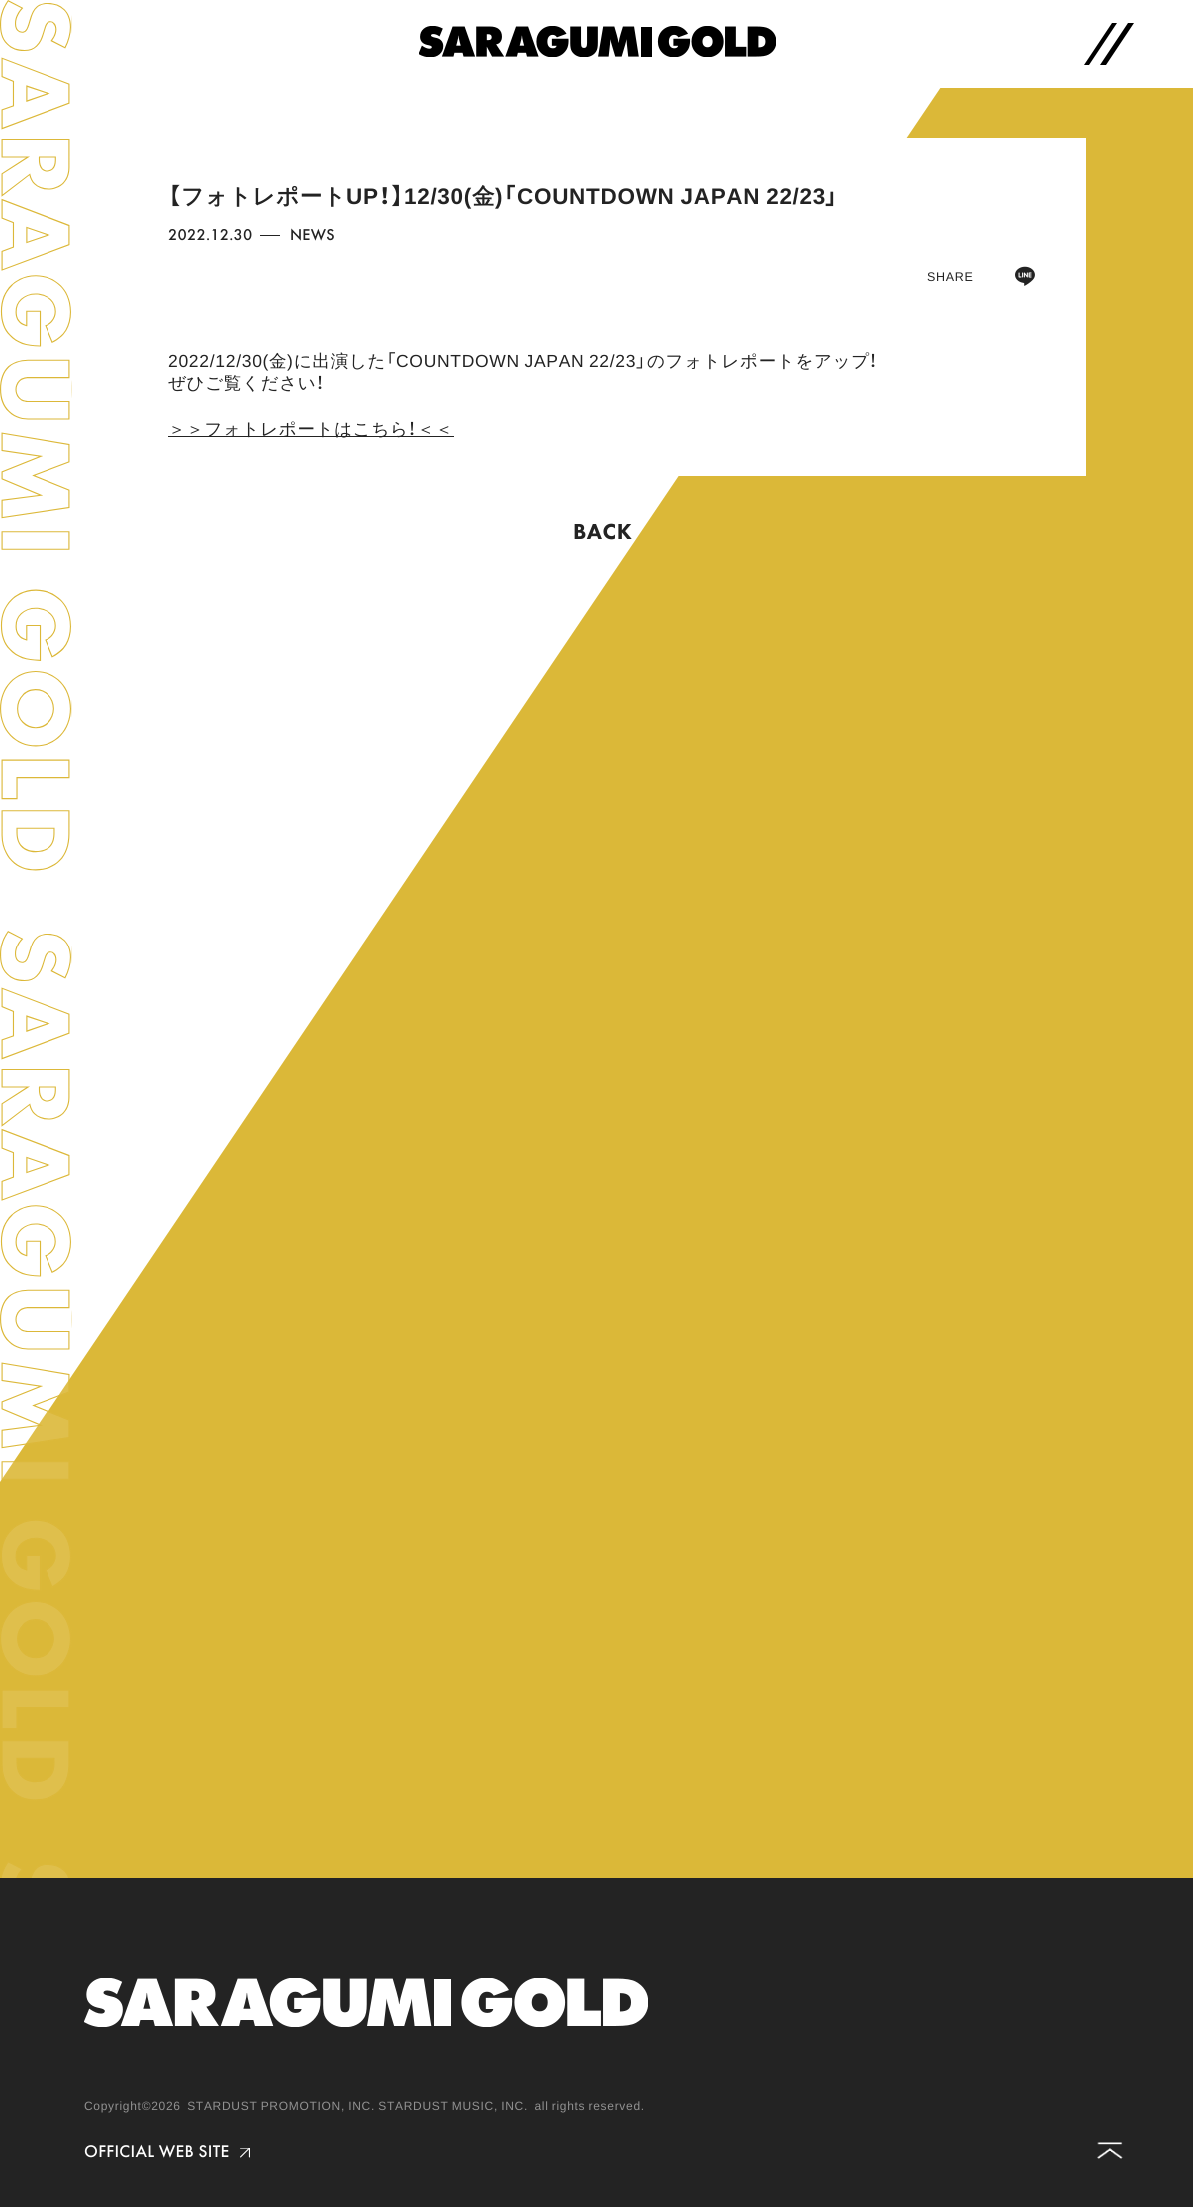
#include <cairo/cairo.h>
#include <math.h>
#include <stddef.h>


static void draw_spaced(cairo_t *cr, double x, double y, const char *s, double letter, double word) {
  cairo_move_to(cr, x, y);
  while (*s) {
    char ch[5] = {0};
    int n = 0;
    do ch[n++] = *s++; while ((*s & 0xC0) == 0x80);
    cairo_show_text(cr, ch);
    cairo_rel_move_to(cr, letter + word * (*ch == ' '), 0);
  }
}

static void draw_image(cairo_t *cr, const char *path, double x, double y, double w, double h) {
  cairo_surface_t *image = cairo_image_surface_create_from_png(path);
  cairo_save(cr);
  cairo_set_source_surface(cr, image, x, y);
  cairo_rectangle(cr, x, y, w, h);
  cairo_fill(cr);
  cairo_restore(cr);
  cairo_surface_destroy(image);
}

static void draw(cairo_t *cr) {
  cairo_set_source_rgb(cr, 1, 1, 1);
  cairo_paint(cr);
  cairo_set_source_rgb(cr, 219 / 255.0, 184 / 255.0, 56 / 255.0);
  cairo_new_path(cr);
  cairo_move_to(cr, 0, 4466);
  cairo_line_to(cr, 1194, 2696);
  cairo_line_to(cr, 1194, -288);
  cairo_line_to(cr, 0, 1482);
  cairo_close_path(cr);
  cairo_fill(cr);
  draw_image(cr, "images/1.png", 0, 0, 72, 1878);
  cairo_set_source_rgb(cr, 1, 1, 1);
  cairo_rectangle(cr, 940, 0, 253, 88);
  cairo_fill(cr);
  draw_image(cr, "images/2.png", 419, 26, 357, 31);
  cairo_set_source_rgb(cr, 0, 0, 0);
  cairo_new_path(cr);
  cairo_move_to(cr, 1112, 23);
  cairo_line_to(cr, 1117, 23);
  cairo_line_to(cr, 1089, 65);
  cairo_line_to(cr, 1084, 65);
  cairo_close_path(cr);
  cairo_fill(cr);
  cairo_new_path(cr);
  cairo_move_to(cr, 1128, 23);
  cairo_line_to(cr, 1134, 23);
  cairo_line_to(cr, 1106, 65);
  cairo_line_to(cr, 1100, 65);
  cairo_close_path(cr);
  cairo_fill(cr);
  cairo_set_source_rgb(cr, 1, 1, 1);
  cairo_rectangle(cr, 678, 138, 408, 338);
  cairo_fill(cr);
  cairo_set_source_rgb(cr, 35 / 255.0, 35 / 255.0, 35 / 255.0);
  cairo_rectangle(cr, 260, 235, 20, 1);
  cairo_fill(cr);
  draw_image(cr, "images/3.png", 1015, 266, 20, 20);
  cairo_rectangle(cr, 168, 436, 286, 1);
  cairo_fill(cr);
  cairo_rectangle(cr, 0, 1878, 1193, 329);
  cairo_fill(cr);
  draw_image(cr, "images/4.png", 84, 1978, 564, 49);
  draw_image(cr, "images/5.png", 240, 2148, 10, 10);
  draw_image(cr, "images/6.png", 1097, 2142, 26, 17);
  cairo_select_font_face(cr, "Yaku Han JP", CAIRO_FONT_SLANT_NORMAL, CAIRO_FONT_WEIGHT_BOLD);
  cairo_set_font_size(cr, 22.5);
  draw_spaced(cr, 168, 204, "【", 0.7, 0);
  cairo_select_font_face(cr, "WenQuanYi Zen Hei", CAIRO_FONT_SLANT_NORMAL, CAIRO_FONT_WEIGHT_BOLD);
  draw_spaced(cr, 181, 204, "フォトレポート", 0.7, 0);
  cairo_select_font_face(cr, "Liberation Sans", CAIRO_FONT_SLANT_NORMAL, CAIRO_FONT_WEIGHT_BOLD);
  draw_spaced(cr, 346, 204, "UP", 0.7, 0);
  cairo_select_font_face(cr, "Yaku Han JP", CAIRO_FONT_SLANT_NORMAL, CAIRO_FONT_WEIGHT_BOLD);
  draw_spaced(cr, 379, 204, "！】", 0.7, 0);
  cairo_select_font_face(cr, "Liberation Sans", CAIRO_FONT_SLANT_NORMAL, CAIRO_FONT_WEIGHT_BOLD);
  draw_spaced(cr, 404, 204, "12/30(", 0.7, 0);
  cairo_select_font_face(cr, "WenQuanYi Zen Hei", CAIRO_FONT_SLANT_NORMAL, CAIRO_FONT_WEIGHT_BOLD);
  draw_spaced(cr, 472, 204, "金", 0.7, 0);
  cairo_select_font_face(cr, "Liberation Sans", CAIRO_FONT_SLANT_NORMAL, CAIRO_FONT_WEIGHT_BOLD);
  draw_spaced(cr, 495, 204, ")", 0.7, 0);
  cairo_select_font_face(cr, "Yaku Han JP", CAIRO_FONT_SLANT_NORMAL, CAIRO_FONT_WEIGHT_BOLD);
  draw_spaced(cr, 503, 204, "「", 0.7, 0);
  cairo_select_font_face(cr, "Liberation Sans", CAIRO_FONT_SLANT_NORMAL, CAIRO_FONT_WEIGHT_BOLD);
  draw_spaced(cr, 517, 204, "COUNTDOWN JAPAN 22/23", 0.7, -1);
  cairo_select_font_face(cr, "Yaku Han JP", CAIRO_FONT_SLANT_NORMAL, CAIRO_FONT_WEIGHT_BOLD);
  draw_spaced(cr, 825, 204, "」", 0.7, 0);
  cairo_select_font_face(cr, "Futura PT Medium", CAIRO_FONT_SLANT_NORMAL, CAIRO_FONT_WEIGHT_NORMAL);
  cairo_set_font_size(cr, 16.25);
  draw_spaced(cr, 168, 240, "2022.12.30", 0.25, 0);
  draw_spaced(cr, 290, 240, "NEWS", 0.25, 0);
  cairo_select_font_face(cr, "Liberation Sans", CAIRO_FONT_SLANT_NORMAL, CAIRO_FONT_WEIGHT_NORMAL);
  cairo_set_font_size(cr, 12.5);
  draw_spaced(cr, 927, 281, "SHARE", 0.7, 0);
  cairo_set_font_size(cr, 17.5);
  draw_spaced(cr, 168, 367, "2022/12/30(", 0.7, 0);
  cairo_select_font_face(cr, "WenQuanYi Zen Hei Medium", CAIRO_FONT_SLANT_NORMAL, CAIRO_FONT_WEIGHT_NORMAL);
  draw_spaced(cr, 269, 367, "金", 0.7, 0);
  cairo_select_font_face(cr, "Liberation Sans", CAIRO_FONT_SLANT_NORMAL, CAIRO_FONT_WEIGHT_NORMAL);
  draw_spaced(cr, 287, 367, ")", 0.7, 0);
  cairo_select_font_face(cr, "WenQuanYi Zen Hei Medium", CAIRO_FONT_SLANT_NORMAL, CAIRO_FONT_WEIGHT_NORMAL);
  draw_spaced(cr, 294, 367, "に出演した", 0.7, 0);
  cairo_select_font_face(cr, "Yaku Han JP", CAIRO_FONT_SLANT_NORMAL, CAIRO_FONT_WEIGHT_NORMAL);
  draw_spaced(cr, 386, 367, "「", 0.7, 0);
  cairo_select_font_face(cr, "Liberation Sans", CAIRO_FONT_SLANT_NORMAL, CAIRO_FONT_WEIGHT_NORMAL);
  draw_spaced(cr, 396, 367, "COUNTDOWN JAPAN 22/23", 0.7, -1);
  cairo_select_font_face(cr, "Yaku Han JP", CAIRO_FONT_SLANT_NORMAL, CAIRO_FONT_WEIGHT_NORMAL);
  draw_spaced(cr, 636, 367, "」", 0.7, 0);
  cairo_select_font_face(cr, "WenQuanYi Zen Hei Medium", CAIRO_FONT_SLANT_NORMAL, CAIRO_FONT_WEIGHT_NORMAL);
  draw_spaced(cr, 647, 367, "のフォトレポートをアップ", 0.7, 0);
  cairo_select_font_face(cr, "Yaku Han JP", CAIRO_FONT_SLANT_NORMAL, CAIRO_FONT_WEIGHT_NORMAL);
  draw_spaced(cr, 869, 367, "！", 0.7, 0);
  cairo_select_font_face(cr, "WenQuanYi Zen Hei Medium", CAIRO_FONT_SLANT_NORMAL, CAIRO_FONT_WEIGHT_NORMAL);
  draw_spaced(cr, 168, 389, "ぜひご覧ください", 0.7, 0);
  cairo_select_font_face(cr, "Yaku Han JP", CAIRO_FONT_SLANT_NORMAL, CAIRO_FONT_WEIGHT_NORMAL);
  draw_spaced(cr, 316, 389, "！", 0.7, 0);
  cairo_select_font_face(cr, "WenQuanYi Zen Hei Medium", CAIRO_FONT_SLANT_NORMAL, CAIRO_FONT_WEIGHT_NORMAL);
  draw_spaced(cr, 168, 435, "＞＞フォトレポートはこちら", 0.7, 0);
  cairo_select_font_face(cr, "Yaku Han JP", CAIRO_FONT_SLANT_NORMAL, CAIRO_FONT_WEIGHT_NORMAL);
  draw_spaced(cr, 408, 435, "！", 0.7, 0);
  cairo_select_font_face(cr, "WenQuanYi Zen Hei Medium", CAIRO_FONT_SLANT_NORMAL, CAIRO_FONT_WEIGHT_NORMAL);
  draw_spaced(cr, 417, 435, "＜＜", 0.7, 0);
  cairo_select_font_face(cr, "Futura PT Black", CAIRO_FONT_SLANT_NORMAL, CAIRO_FONT_WEIGHT_NORMAL);
  cairo_set_font_size(cr, 22.5);
  draw_spaced(cr, 573, 539, "BACK", 0.5, 0);
  cairo_select_font_face(cr, "Liberation Sans", CAIRO_FONT_SLANT_NORMAL, CAIRO_FONT_WEIGHT_NORMAL);
  cairo_set_font_size(cr, 12);
  cairo_set_source_rgb(cr, 145 / 255.0, 145 / 255.0, 145 / 255.0);
  draw_spaced(cr, 84, 2110, "Copyright©2026  STARDUST PROMOTION, INC. STARDUST MUSIC, INC.  all rights reserved.", 0.7, -0.8);
  cairo_select_font_face(cr, "Futura PT Medium", CAIRO_FONT_SLANT_NORMAL, CAIRO_FONT_WEIGHT_NORMAL);
  cairo_set_font_size(cr, 17.5);
  cairo_set_source_rgb(cr, 1, 1, 1);
  draw_spaced(cr, 84, 2157, "OFFICIAL WEB SITE", 0.3, 0);
}

int main(void) {
  cairo_surface_t *surface = cairo_image_surface_create(CAIRO_FORMAT_RGB24, 1193, 2207);
  cairo_t *cr = cairo_create(surface);
  cairo_font_options_t *options = cairo_font_options_create();
  cairo_font_options_set_hint_metrics(options, CAIRO_HINT_METRICS_OFF);
  cairo_font_options_set_hint_style(options, CAIRO_HINT_STYLE_NONE);
  cairo_set_font_options(cr, options);
  cairo_set_miter_limit(cr, 4);
  draw(cr);
  cairo_surface_write_to_png(surface, "out.png");
  cairo_font_options_destroy(options);
  cairo_destroy(cr);
  cairo_surface_destroy(surface);
  return 0;
}
